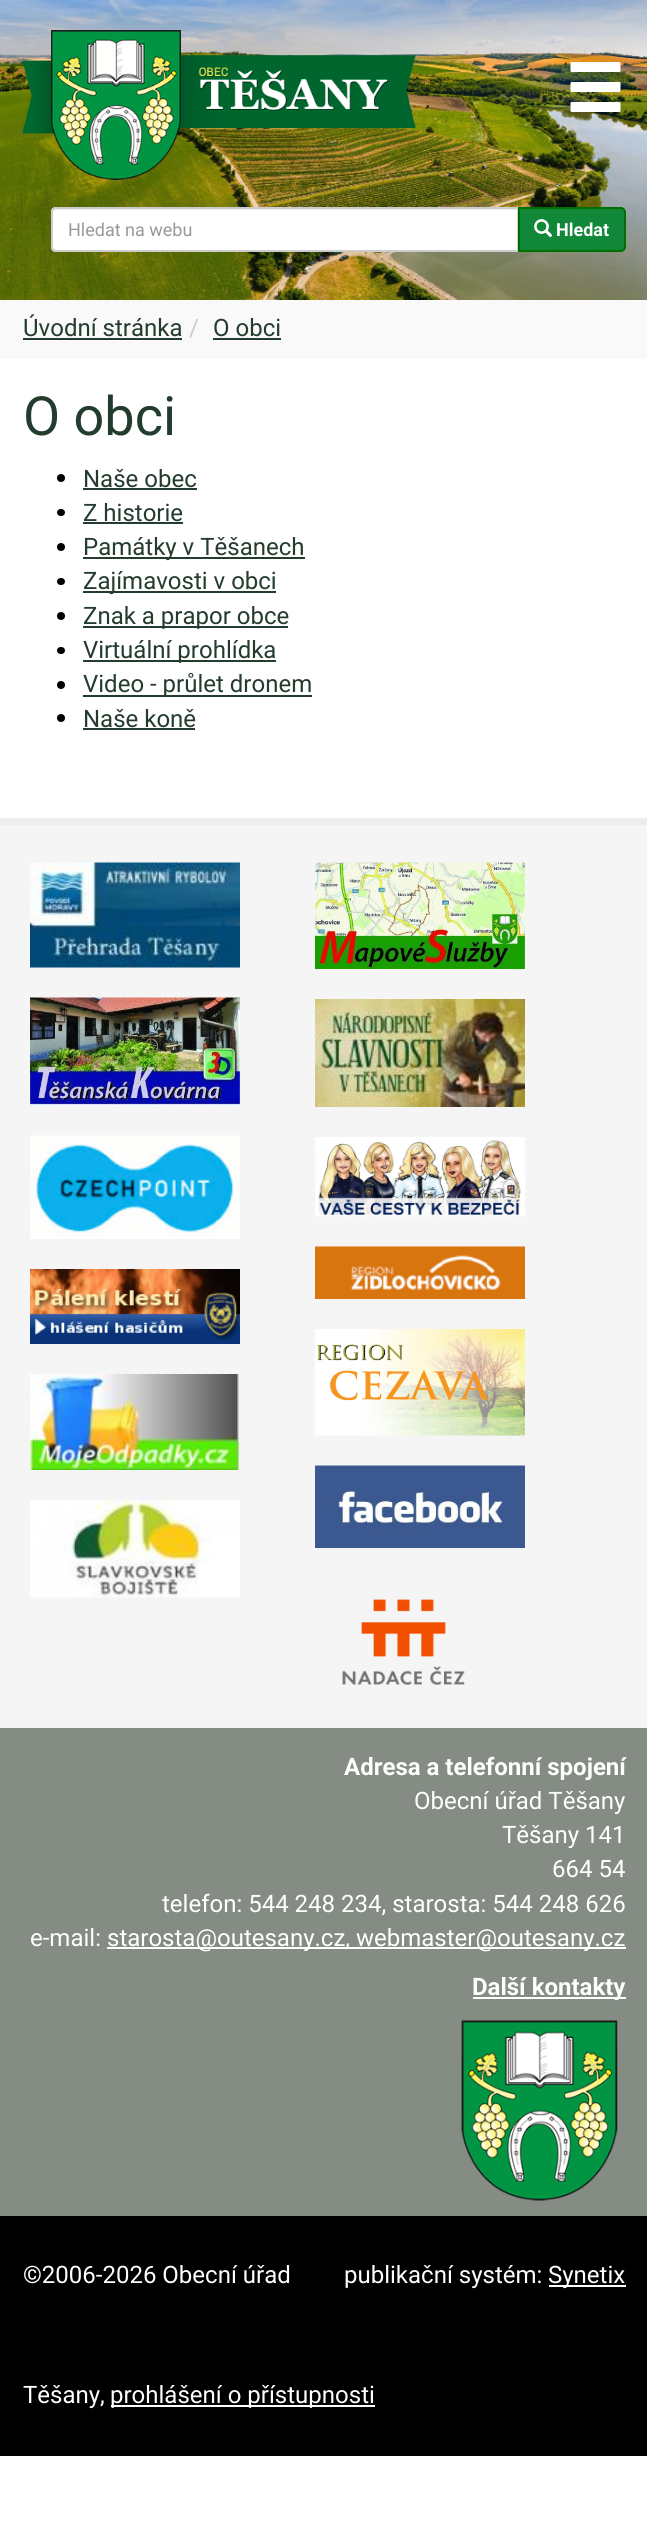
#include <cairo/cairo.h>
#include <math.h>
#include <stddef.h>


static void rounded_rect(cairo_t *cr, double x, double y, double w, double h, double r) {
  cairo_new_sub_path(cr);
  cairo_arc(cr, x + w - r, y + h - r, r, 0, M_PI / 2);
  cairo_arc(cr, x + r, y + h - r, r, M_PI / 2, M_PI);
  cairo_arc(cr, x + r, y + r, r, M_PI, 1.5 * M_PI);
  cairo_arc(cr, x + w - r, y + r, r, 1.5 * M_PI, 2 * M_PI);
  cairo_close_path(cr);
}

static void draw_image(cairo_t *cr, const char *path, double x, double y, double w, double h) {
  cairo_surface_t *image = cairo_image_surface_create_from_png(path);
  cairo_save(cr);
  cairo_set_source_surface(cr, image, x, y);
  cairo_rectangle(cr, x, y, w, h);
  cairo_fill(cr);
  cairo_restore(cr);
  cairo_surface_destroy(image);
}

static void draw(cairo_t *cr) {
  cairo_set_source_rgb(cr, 1, 1, 1);
  cairo_paint(cr);
  draw_image(cr, "images/1.png", 0, 0, 647, 300);
  draw_image(cr, "images/2.png", 22, 30, 394, 150);
  draw_image(cr, "images/3.png", 570, 62, 51, 50);
  cairo_set_source_rgb(cr, 1, 1, 1);
  cairo_new_path(cr);
  cairo_move_to(cr, 56, 207);
  cairo_line_to(cr, 519, 207);
  cairo_line_to(cr, 519, 252);
  cairo_line_to(cr, 56, 252);
  cairo_curve_to(cr, 53, 252, 51, 250, 51, 247);
  cairo_line_to(cr, 51, 212);
  cairo_curve_to(cr, 51, 209, 53, 207, 56, 207);
  cairo_close_path(cr);
  cairo_fill(cr);
  cairo_set_source_rgb(cr, 236 / 255.0, 236 / 255.0, 236 / 255.0);
  cairo_new_path(cr);
  cairo_move_to(cr, 56, 210);
  cairo_line_to(cr, 518, 210);
  cairo_line_to(cr, 518, 209);
  cairo_line_to(cr, 56, 209);
  cairo_curve_to(cr, 55, 209, 54, 210, 53, 211);
  cairo_close_path(cr);
  cairo_fill(cr);
  cairo_new_path(cr);
  cairo_move_to(cr, 56, 208);
  cairo_line_to(cr, 518, 208);
  cairo_line_to(cr, 518, 251);
  cairo_line_to(cr, 56, 251);
  cairo_curve_to(cr, 54, 251, 52, 249, 52, 247);
  cairo_line_to(cr, 52, 212);
  cairo_curve_to(cr, 52, 210, 54, 208, 56, 208);
  cairo_close_path(cr);
  cairo_set_source_rgb(cr, 204 / 255.0, 204 / 255.0, 204 / 255.0);
  cairo_stroke(cr);
  cairo_set_source_rgb(cr, 17 / 255.0, 136 / 255.0, 57 / 255.0);
  cairo_new_path(cr);
  cairo_move_to(cr, 519, 208);
  cairo_line_to(cr, 621, 208);
  cairo_curve_to(cr, 623, 208, 625, 210, 625, 212);
  cairo_line_to(cr, 625, 247);
  cairo_curve_to(cr, 625, 249, 623, 251, 621, 251);
  cairo_line_to(cr, 519, 251);
  cairo_close_path(cr);
  cairo_fill_preserve(cr);
  cairo_set_source_rgb(cr, 0, 113 / 255.0, 0);
  cairo_stroke(cr);
  draw_image(cr, "images/4.png", 534, 219, 19, 19);
  cairo_set_source_rgb(cr, 249 / 255.0, 249 / 255.0, 249 / 255.0);
  cairo_rectangle(cr, 0, 300, 647, 59);
  cairo_fill(cr);
  cairo_set_source_rgb(cr, 36 / 255.0, 60 / 255.0, 46 / 255.0);
  cairo_rectangle(cr, 23, 338, 159, 2);
  cairo_fill(cr);
  cairo_rectangle(cr, 213, 338, 68, 2);
  cairo_fill(cr);
  cairo_set_source_rgb(cr, 0, 0, 0);
  cairo_arc(cr, 61, 478, 4, 0, 2 * M_PI);
  cairo_fill(cr);
  cairo_set_source_rgb(cr, 36 / 255.0, 60 / 255.0, 46 / 255.0);
  cairo_rectangle(cr, 83, 488, 114, 2);
  cairo_fill(cr);
  cairo_set_source_rgb(cr, 0, 0, 0);
  rounded_rect(cr, 57, 509, 8, 7, 3.5);
  cairo_fill(cr);
  cairo_set_source_rgb(cr, 36 / 255.0, 60 / 255.0, 46 / 255.0);
  cairo_rectangle(cr, 83, 522, 100, 2);
  cairo_fill(cr);
  cairo_set_source_rgb(cr, 0, 0, 0);
  cairo_arc(cr, 61, 547, 4, 0, 2 * M_PI);
  cairo_fill(cr);
  cairo_set_source_rgb(cr, 36 / 255.0, 60 / 255.0, 46 / 255.0);
  cairo_rectangle(cr, 83, 557, 222, 2);
  cairo_fill(cr);
  cairo_set_source_rgb(cr, 0, 0, 0);
  rounded_rect(cr, 57, 578, 8, 7, 3.5);
  cairo_fill(cr);
  cairo_set_source_rgb(cr, 36 / 255.0, 60 / 255.0, 46 / 255.0);
  cairo_rectangle(cr, 83, 591, 193, 2);
  cairo_fill(cr);
  cairo_set_source_rgb(cr, 0, 0, 0);
  cairo_arc(cr, 61, 616, 4, 0, 2 * M_PI);
  cairo_fill(cr);
  cairo_set_source_rgb(cr, 36 / 255.0, 60 / 255.0, 46 / 255.0);
  cairo_rectangle(cr, 83, 626, 205, 2);
  cairo_fill(cr);
  cairo_set_source_rgb(cr, 0, 0, 0);
  rounded_rect(cr, 57, 647, 8, 7, 3.5);
  cairo_fill(cr);
  cairo_set_source_rgb(cr, 36 / 255.0, 60 / 255.0, 46 / 255.0);
  cairo_rectangle(cr, 83, 660, 193, 2);
  cairo_fill(cr);
  cairo_set_source_rgb(cr, 0, 0, 0);
  cairo_arc(cr, 61, 685, 4, 0, 2 * M_PI);
  cairo_fill(cr);
  cairo_set_source_rgb(cr, 36 / 255.0, 60 / 255.0, 46 / 255.0);
  cairo_rectangle(cr, 83, 695, 229, 2);
  cairo_fill(cr);
  cairo_set_source_rgb(cr, 0, 0, 0);
  cairo_arc(cr, 61, 718, 4, 0, 2 * M_PI);
  cairo_fill(cr);
  cairo_set_source_rgb(cr, 36 / 255.0, 60 / 255.0, 46 / 255.0);
  cairo_rectangle(cr, 83, 728, 112, 2);
  cairo_fill(cr);
  cairo_set_source_rgb(cr, 245 / 255.0, 245 / 255.0, 245 / 255.0);
  cairo_rectangle(cr, 0, 825, 647, 903);
  cairo_fill(cr);
  cairo_set_source_rgb(cr, 237 / 255.0, 237 / 255.0, 237 / 255.0);
  cairo_rectangle(cr, 0, 818, 647, 7);
  cairo_fill(cr);
  draw_image(cr, "images/5.png", 30, 862, 210, 106);
  draw_image(cr, "images/6.png", 315, 862, 210, 107);
  draw_image(cr, "images/7.png", 30, 997, 210, 109);
  draw_image(cr, "images/8.png", 315, 999, 210, 108);
  draw_image(cr, "images/9.png", 30, 1135, 210, 104);
  draw_image(cr, "images/10.png", 315, 1137, 210, 80);
  draw_image(cr, "images/11.png", 30, 1269, 210, 75);
  draw_image(cr, "images/12.png", 315, 1246, 210, 53);
  draw_image(cr, "images/13.png", 30, 1374, 210, 96);
  draw_image(cr, "images/14.png", 315, 1329, 210, 107);
  draw_image(cr, "images/15.png", 30, 1500, 210, 98);
  draw_image(cr, "images/16.png", 315, 1465, 210, 83);
  draw_image(cr, "images/17.png", 342, 1599, 123, 86);
  cairo_set_source_rgb(cr, 132 / 255.0, 140 / 255.0, 132 / 255.0);
  cairo_rectangle(cr, 0, 1728, 647, 488);
  cairo_fill(cr);
  cairo_set_source_rgb(cr, 1, 1, 1);
  cairo_rectangle(cr, 107, 1947, 519, 2);
  cairo_fill(cr);
  cairo_rectangle(cr, 473, 1997, 153, 2);
  cairo_fill(cr);
  draw_image(cr, "images/18.png", 461, 2020, 157, 181);
  cairo_set_source_rgb(cr, 0, 0, 0);
  cairo_rectangle(cr, 0, 2216, 647, 240);
  cairo_fill(cr);
  cairo_set_source_rgb(cr, 1, 1, 1);
  cairo_rectangle(cr, 549, 2285, 77, 2);
  cairo_fill(cr);
  cairo_rectangle(cr, 111, 2405, 264, 2);
  cairo_fill(cr);
  cairo_select_font_face(cr, "Roboto", CAIRO_FONT_SLANT_NORMAL, CAIRO_FONT_WEIGHT_NORMAL);
  cairo_set_font_size(cr, 18);
  cairo_set_source_rgb(cr, 153 / 255.0, 153 / 255.0, 153 / 255.0);
  cairo_move_to(cr, 68, 236);
  cairo_show_text(cr, "Hledat na webu");
  cairo_select_font_face(cr, "Roboto", CAIRO_FONT_SLANT_NORMAL, CAIRO_FONT_WEIGHT_BOLD);
  cairo_set_source_rgb(cr, 1, 1, 1);
  cairo_move_to(cr, 556, 236);
  cairo_show_text(cr, "Hledat");
  cairo_select_font_face(cr, "Roboto", CAIRO_FONT_SLANT_NORMAL, CAIRO_FONT_WEIGHT_NORMAL);
  cairo_set_font_size(cr, 24);
  cairo_set_source_rgb(cr, 36 / 255.0, 60 / 255.0, 46 / 255.0);
  cairo_move_to(cr, 23, 336);
  cairo_show_text(cr, "Úvodní stránka");
  cairo_set_source_rgb(cr, 204 / 255.0, 204 / 255.0, 204 / 255.0);
  cairo_move_to(cr, 189, 336);
  cairo_show_text(cr, "/");
  cairo_set_source_rgb(cr, 36 / 255.0, 60 / 255.0, 46 / 255.0);
  cairo_move_to(cr, 213, 336);
  cairo_show_text(cr, "O obci");
  cairo_set_font_size(cr, 54);
  cairo_move_to(cr, 23, 435);
  cairo_show_text(cr, "O obci");
  cairo_set_font_size(cr, 24);
  cairo_move_to(cr, 83, 487);
  cairo_show_text(cr, "Naše obec");
  cairo_move_to(cr, 83, 521);
  cairo_show_text(cr, "Z historie");
  cairo_move_to(cr, 83, 555);
  cairo_show_text(cr, "Památky v Těšanech");
  cairo_move_to(cr, 83, 589);
  cairo_show_text(cr, "Zajímavosti v obci");
  cairo_move_to(cr, 83, 624);
  cairo_show_text(cr, "Znak a prapor obce");
  cairo_move_to(cr, 83, 658);
  cairo_show_text(cr, "Virtuální prohlídka");
  cairo_move_to(cr, 83, 692);
  cairo_show_text(cr, "Video - průlet dronem");
  cairo_move_to(cr, 83, 727);
  cairo_show_text(cr, "Naše koně");
  cairo_select_font_face(cr, "Roboto", CAIRO_FONT_SLANT_NORMAL, CAIRO_FONT_WEIGHT_BOLD);
  cairo_set_source_rgb(cr, 1, 1, 1);
  cairo_move_to(cr, 344, 1775);
  cairo_show_text(cr, "Adresa a telefonní spojení");
  cairo_select_font_face(cr, "Roboto", CAIRO_FONT_SLANT_NORMAL, CAIRO_FONT_WEIGHT_NORMAL);
  cairo_move_to(cr, 414, 1809);
  cairo_show_text(cr, "Obecní úřad Těšany");
  cairo_move_to(cr, 502, 1843);
  cairo_show_text(cr, "Těšany 141");
  cairo_move_to(cr, 552, 1877);
  cairo_show_text(cr, "664 54");
  cairo_move_to(cr, 162, 1912);
  cairo_show_text(cr, "telefon: 544 248 234, starosta: 544 248 626");
  cairo_move_to(cr, 30, 1946);
  cairo_show_text(cr, "e-mail:");
  cairo_move_to(cr, 107, 1946);
  cairo_show_text(cr, "starosta@outesany.cz, webmaster@outesany.cz");
  cairo_select_font_face(cr, "Roboto", CAIRO_FONT_SLANT_NORMAL, CAIRO_FONT_WEIGHT_BOLD);
  cairo_move_to(cr, 472, 1995);
  cairo_show_text(cr, "Další kontakty");
  cairo_select_font_face(cr, "Roboto", CAIRO_FONT_SLANT_NORMAL, CAIRO_FONT_WEIGHT_NORMAL);
  cairo_move_to(cr, 23, 2283);
  cairo_show_text(cr, "©2006-2026 Obecní úřad");
  cairo_move_to(cr, 344, 2283);
  cairo_show_text(cr, "publikační systém:");
  cairo_move_to(cr, 548, 2283);
  cairo_show_text(cr, "Synetix");
  cairo_move_to(cr, 23, 2403);
  cairo_show_text(cr, "Těšany,");
  cairo_move_to(cr, 110, 2403);
  cairo_show_text(cr, "prohlášení o přístupnosti");
}

int main(void) {
  cairo_surface_t *surface = cairo_image_surface_create(CAIRO_FORMAT_RGB24, 647, 2529);
  cairo_t *cr = cairo_create(surface);
  cairo_font_options_t *options = cairo_font_options_create();
  cairo_font_options_set_hint_metrics(options, CAIRO_HINT_METRICS_OFF);
  cairo_font_options_set_hint_style(options, CAIRO_HINT_STYLE_NONE);
  cairo_set_font_options(cr, options);
  cairo_set_miter_limit(cr, 4);
  draw(cr);
  cairo_surface_write_to_png(surface, "out.png");
  cairo_font_options_destroy(options);
  cairo_destroy(cr);
  cairo_surface_destroy(surface);
  return 0;
}
